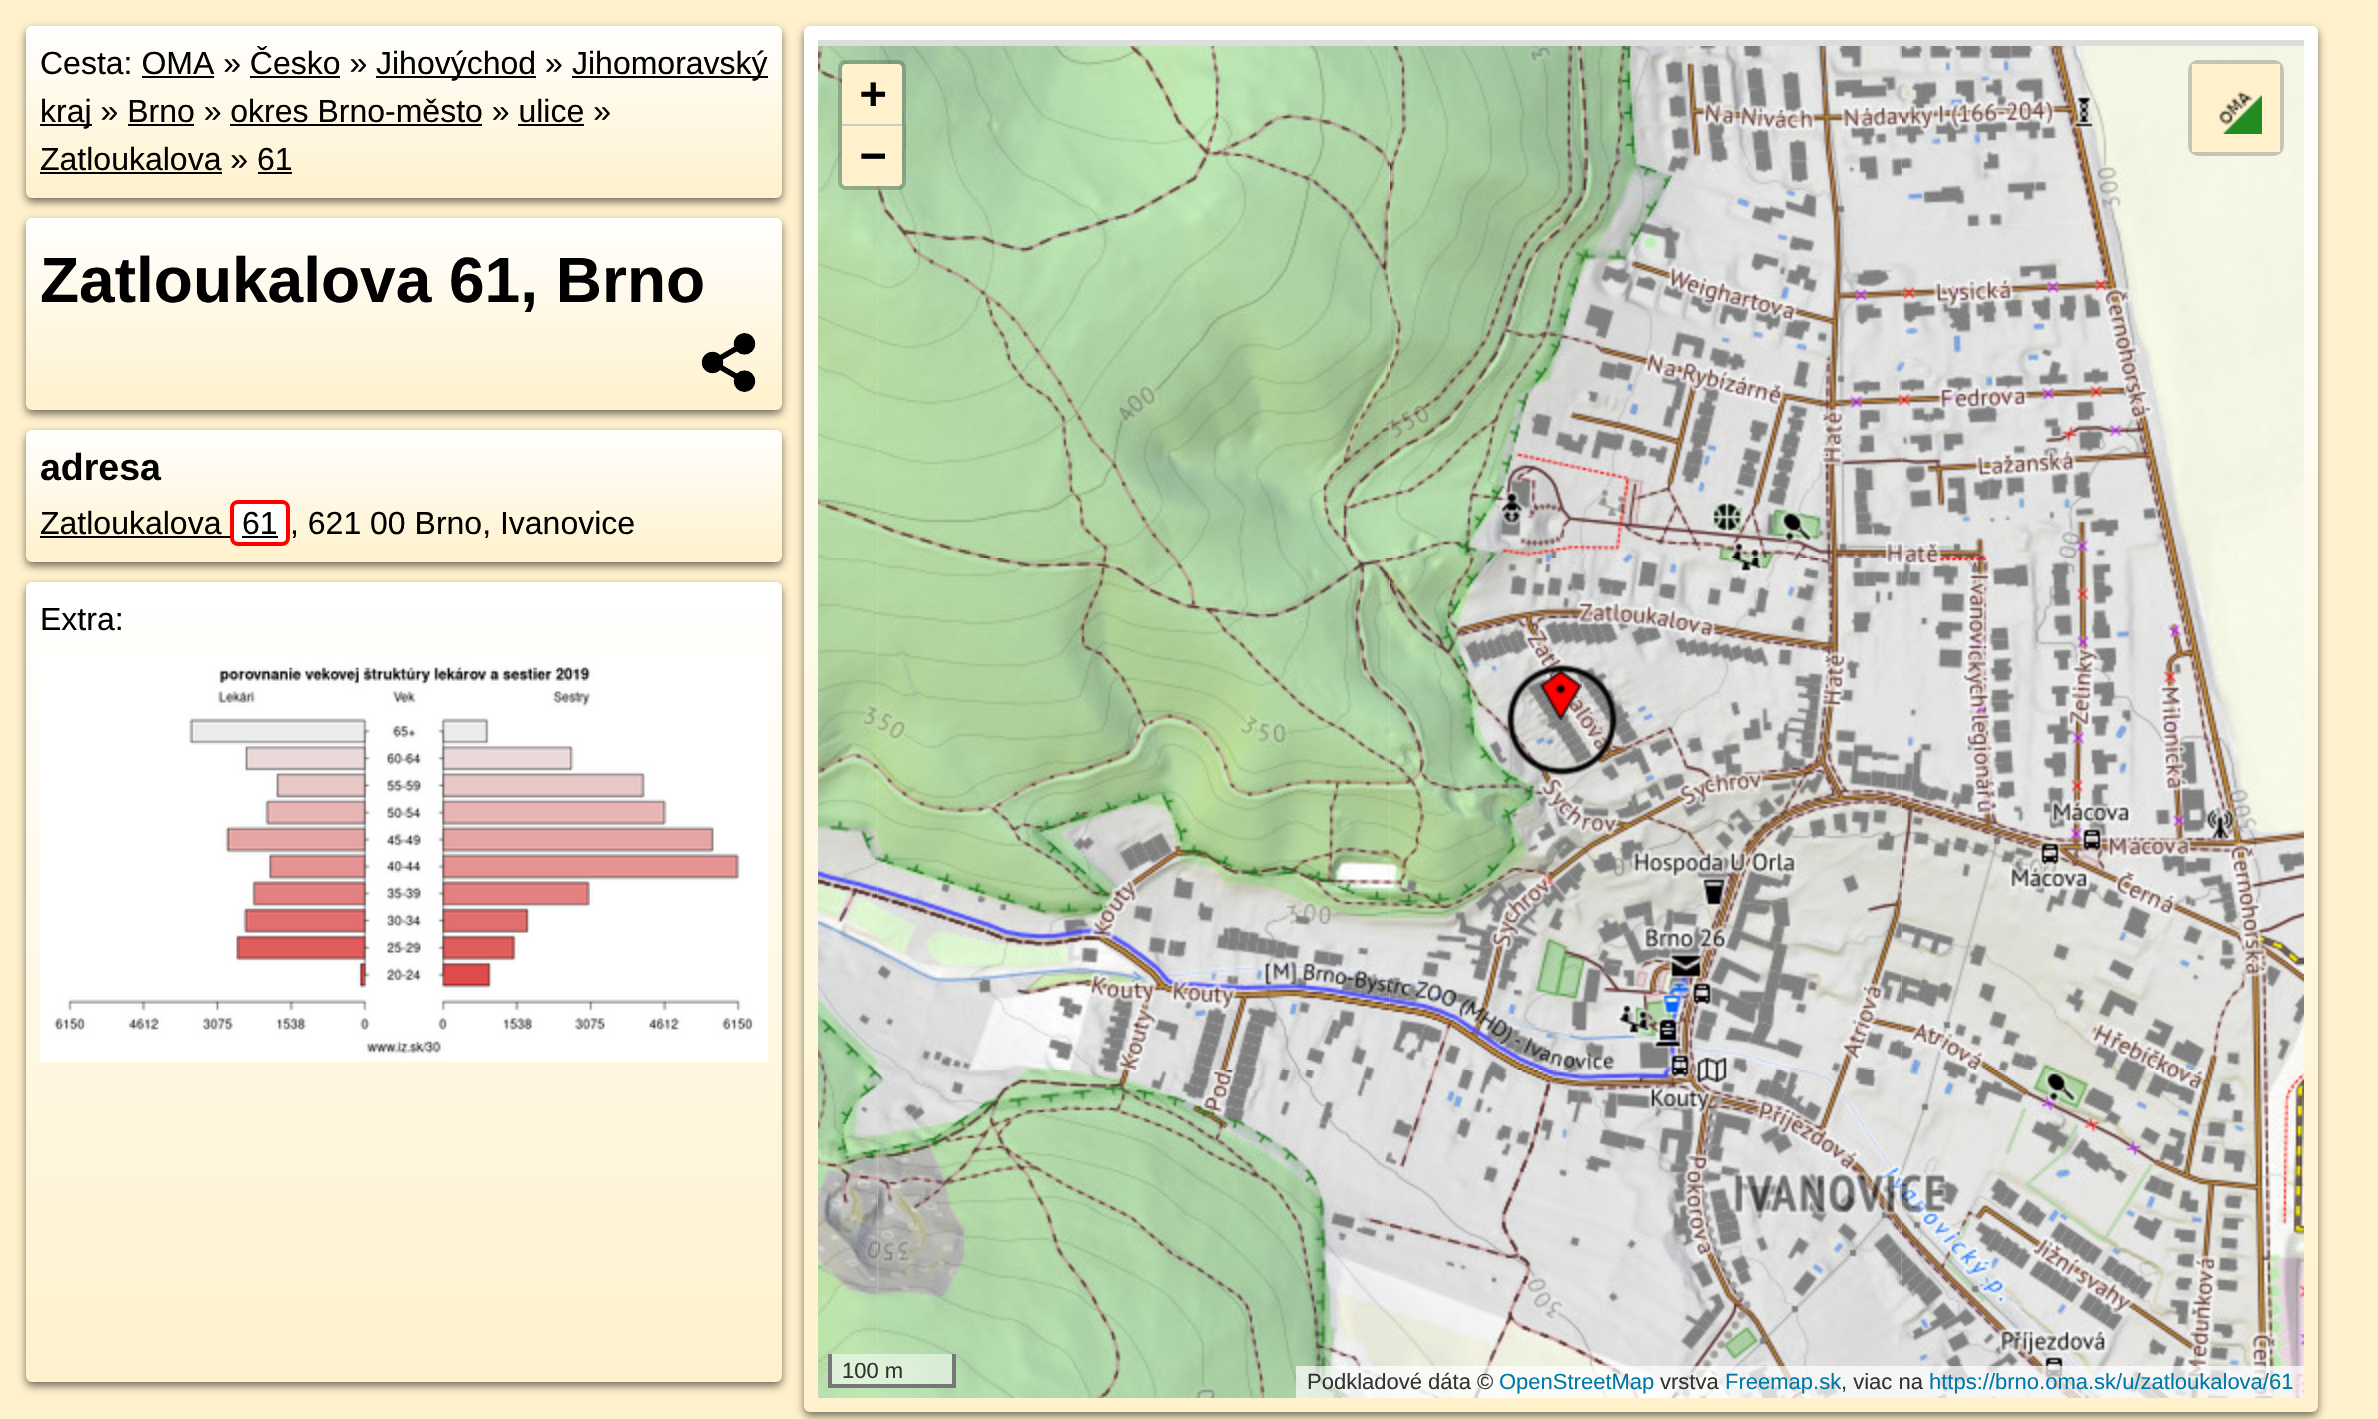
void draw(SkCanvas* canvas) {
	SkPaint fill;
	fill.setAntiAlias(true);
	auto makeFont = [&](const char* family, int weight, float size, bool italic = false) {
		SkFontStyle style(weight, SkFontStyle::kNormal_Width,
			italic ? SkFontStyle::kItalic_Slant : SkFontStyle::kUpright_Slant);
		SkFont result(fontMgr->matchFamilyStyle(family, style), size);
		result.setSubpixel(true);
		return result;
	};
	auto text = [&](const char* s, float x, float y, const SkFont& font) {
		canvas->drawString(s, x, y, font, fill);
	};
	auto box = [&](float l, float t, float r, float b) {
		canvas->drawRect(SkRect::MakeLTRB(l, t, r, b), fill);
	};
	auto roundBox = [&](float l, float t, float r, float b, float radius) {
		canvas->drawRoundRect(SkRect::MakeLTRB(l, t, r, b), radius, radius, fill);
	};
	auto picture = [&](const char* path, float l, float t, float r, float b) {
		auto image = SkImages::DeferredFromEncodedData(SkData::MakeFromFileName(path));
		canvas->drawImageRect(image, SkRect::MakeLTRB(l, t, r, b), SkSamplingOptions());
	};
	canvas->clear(0xFFFFF1CC);
	fill.setColor(0x8C000000);
	fill.setMaskFilter(SkMaskFilter::MakeBlur(kNormal_SkBlurStyle, 4));
	canvas->drawRoundRect(SkRect::MakeLTRB(26, 30, 782, 202), 6, 6, fill);
	fill.setMaskFilter(nullptr);
	{
		const SkColor colors[] = {0xFFFFFFFF, 0xFFFFF1CC};
		const float stops[] = {0, 1};
		const SkPoint ends[] = {{404, 26}, {404, 198}};
		fill.setShader(SkGradientShader::MakeLinear(ends, colors, stops, 2, SkTileMode::kClamp));
		fill.setAlpha(255);
	}
	roundBox(26, 26, 782, 198, 6);
	fill.setShader(nullptr);
	fill.setColor(0xFF000000);
	box(376, 76, 536, 78);
	box(572, 76, 768, 78);
	box(142, 76, 214, 78);
	box(250, 76, 340, 78);
	box(40, 124, 92, 126);
	box(128, 124, 194, 126);
	box(230, 124, 482, 126);
	box(518, 124, 584, 126);
	box(40, 172, 222, 174);
	box(258, 172, 292, 174);
	fill.setColor(0x8C000000);
	fill.setMaskFilter(SkMaskFilter::MakeBlur(kNormal_SkBlurStyle, 4));
	canvas->drawRoundRect(SkRect::MakeLTRB(26, 222, 782, 414), 6, 6, fill);
	fill.setMaskFilter(nullptr);
	{
		const SkColor colors[] = {0xFFFFFFFF, 0xFFFFF1CC};
		const float stops[] = {0, 1};
		const SkPoint ends[] = {{404, 218}, {404, 410}};
		fill.setShader(SkGradientShader::MakeLinear(ends, colors, stops, 2, SkTileMode::kClamp));
		fill.setAlpha(255);
	}
	roundBox(26, 218, 782, 410, 6);
	picture("image0.png", 701, 333, 756, 392);
	fill.setShader(nullptr);
	fill.setColor(0x8C000000);
	fill.setMaskFilter(SkMaskFilter::MakeBlur(kNormal_SkBlurStyle, 4));
	canvas->drawRoundRect(SkRect::MakeLTRB(26, 434, 782, 566), 6, 6, fill);
	fill.setMaskFilter(nullptr);
	{
		const SkColor colors[] = {0xFFFFFFFF, 0xFFFFF1CC};
		const float stops[] = {0, 1};
		const SkPoint ends[] = {{404, 430}, {404, 562}};
		fill.setShader(SkGradientShader::MakeLinear(ends, colors, stops, 2, SkTileMode::kClamp));
		fill.setAlpha(255);
	}
	roundBox(26, 430, 782, 562, 6);
	fill.setShader(nullptr);
	fill.setColor(0xFF000000);
	box(40, 536, 230, 538);
	fill.setColor(0xFFFFFFFF);
	canvas->drawRoundRect(SkRect::MakeLTRB(232, 502, 288, 544), 6, 6, fill);
	fill.setStyle(SkPaint::kStroke_Style);
	fill.setStrokeWidth(4);
	fill.setColor(0xFFFF0000);
	canvas->drawRoundRect(SkRect::MakeLTRB(232, 502, 288, 544), 6, 6, fill);
	fill.setStyle(SkPaint::kFill_Style);
	fill.setColor(0xFF000000);
	box(242, 536, 278, 538);
	fill.setColor(0x8C000000);
	fill.setMaskFilter(SkMaskFilter::MakeBlur(kNormal_SkBlurStyle, 4));
	canvas->drawRoundRect(SkRect::MakeLTRB(26, 586, 782, 1386), 6, 6, fill);
	fill.setMaskFilter(nullptr);
	{
		const SkColor colors[] = {0xFFFFFFFF, 0xFFFFF1CC};
		const float stops[] = {0, 1};
		const SkPoint ends[] = {{404, 582}, {404, 1382}};
		fill.setShader(SkGradientShader::MakeLinear(ends, colors, stops, 2, SkTileMode::kClamp));
		fill.setAlpha(255);
	}
	roundBox(26, 582, 782, 1382, 6);
	picture("image1.png", 40, 653, 768, 1062);
	fill.setShader(nullptr);
	fill.setColor(0x8C000000);
	fill.setMaskFilter(SkMaskFilter::MakeBlur(kNormal_SkBlurStyle, 4));
	canvas->drawRoundRect(SkRect::MakeLTRB(804, 30, 2318, 1416), 6, 6, fill);
	fill.setMaskFilter(nullptr);
	{
		const SkColor colors[] = {0xFFFFFFFF, 0xFFFFF1CC};
		const float stops[] = {0, 1};
		const SkPoint ends[] = {{1561, 26}, {1561, 1412}};
		fill.setShader(SkGradientShader::MakeLinear(ends, colors, stops, 2, SkTileMode::kClamp));
		fill.setAlpha(255);
	}
	roundBox(804, 26, 2318, 1412, 6);
	fill.setShader(nullptr);
	fill.setColor(0xFFDDDDDD);
	box(818, 40, 2304, 1398);
	picture("image3.png", 878, 46, 1390, 558);
	picture("image2.png", 818, 46, 879, 558);
	picture("image4.png", 1390, 46, 1902, 558);
	picture("image5.png", 1902, 46, 2304, 558);
	picture("image7.png", 878, 558, 1390, 1070);
	picture("image6.png", 818, 558, 879, 1070);
	picture("image8.png", 1390, 558, 1902, 1070);
	picture("image9.png", 1902, 558, 2304, 1070);
	picture("image11.png", 878, 1070, 1390, 1398);
	picture("image10.png", 818, 1070, 879, 1398);
	picture("image12.png", 1390, 1070, 1902, 1398);
	picture("image13.png", 1902, 1070, 2304, 1398);
	picture("image14.png", 1505, 663, 1618, 777);
	picture("image15.png", 1540, 670, 1582, 720);
	fill.setStyle(SkPaint::kStroke_Style);
	fill.setColor(0x33000000);
	canvas->drawRoundRect(SkRect::MakeLTRB(840, 62, 904, 188), 6, 6, fill);
	fill.setStyle(SkPaint::kFill_Style);
	fill.setColor(0xFFFFF1CC);
	canvas->drawPath(SkPathBuilder().moveTo(846, 64).lineTo(898, 64).cubicTo(900, 64, 902, 66, 902, 68).lineTo(902, 126).lineTo(842, 126).lineTo(842, 68).cubicTo(842, 66, 844, 64, 846, 64).close().detach(), fill);
	fill.setColor(0xFFCCCCCC);
	box(842, 124, 902, 126);
	fill.setColor(0xFFFFF1CC);
	canvas->drawPath(SkPathBuilder().moveTo(842, 126).lineTo(902, 126).lineTo(902, 182).cubicTo(902, 184, 900, 186, 898, 186).lineTo(846, 186).cubicTo(844, 186, 842, 184, 842, 182).close().detach(), fill);
	fill.setStyle(SkPaint::kStroke_Style);
	fill.setColor(0x33000000);
	canvas->drawRoundRect(SkRect::MakeLTRB(2190, 62, 2282, 154), 8, 8, fill);
	fill.setStyle(SkPaint::kFill_Style);
	fill.setColor(0xFFFFF1CC);
	box(2192, 64, 2280, 152);
	picture("image16.png", 2219, 91, 2262, 134);
	fill.setColor(0x80FFFFFF);
	box(832, 1354, 952, 1384);
	fill.setColor(0xFF777777);
	box(952, 1354, 956, 1388);
	box(828, 1384, 956, 1388);
	box(828, 1354, 832, 1388);
	fill.setColor(0xB3FFFFFF);
	box(1296, 1366, 2304, 1398);
	auto font1 = makeFont("Liberation Sans", 400, 32);
	fill.setColor(0xFF000000);
	text("Cesta: OMA » Česko »", 40, 74, font1);
	text("Jihovýchod »", 376, 74, font1);
	text("Jihomoravský", 572, 74, font1);
	text("kraj » Brno » okres Brno-město » ulice »", 40, 122, font1);
	text("Zatloukalova » 61", 40, 170, font1);
	auto font2 = makeFont("Liberation Sans", 700, 64);
	text("Zatloukalova 61, Brno", 40, 302, font2);
	auto font3 = makeFont("Liberation Sans", 700, 37.5f);
	text("adresa", 40, 480, font3);
	text("Zatloukalova", 40, 534, font1);
	text("61", 242, 534, font1);
	text(", 621 00 Brno, Ivanovice", 290, 534, font1);
	text("Extra:", 40, 630, font1);
	auto font4 = makeFont("DejaVu Sans Mono", 700, 44);
	text("+", 860, 108, font4);
	text("−", 860, 170, font4);
	auto font5 = makeFont("Liberation Sans", 400, 22);
	fill.setColor(0xFF333333);
	text("100 m", 842, 1378, font5);
	text("Podkladové dáta ©", 1307, 1389, font5);
	fill.setColor(0xFF0078A8);
	text("OpenStreetMap", 1499, 1389, font5);
	fill.setColor(0xFF333333);
	text("vrstva", 1660, 1389, font5);
	fill.setColor(0xFF0078A8);
	text("Freemap.sk", 1725, 1389, font5);
	fill.setColor(0xFF333333);
	text(", viac na", 1841, 1389, font5);
	fill.setColor(0xFF0078A8);
	text("https://brno.oma.sk/u/zatloukalova/61", 1929, 1389, font5);
}
